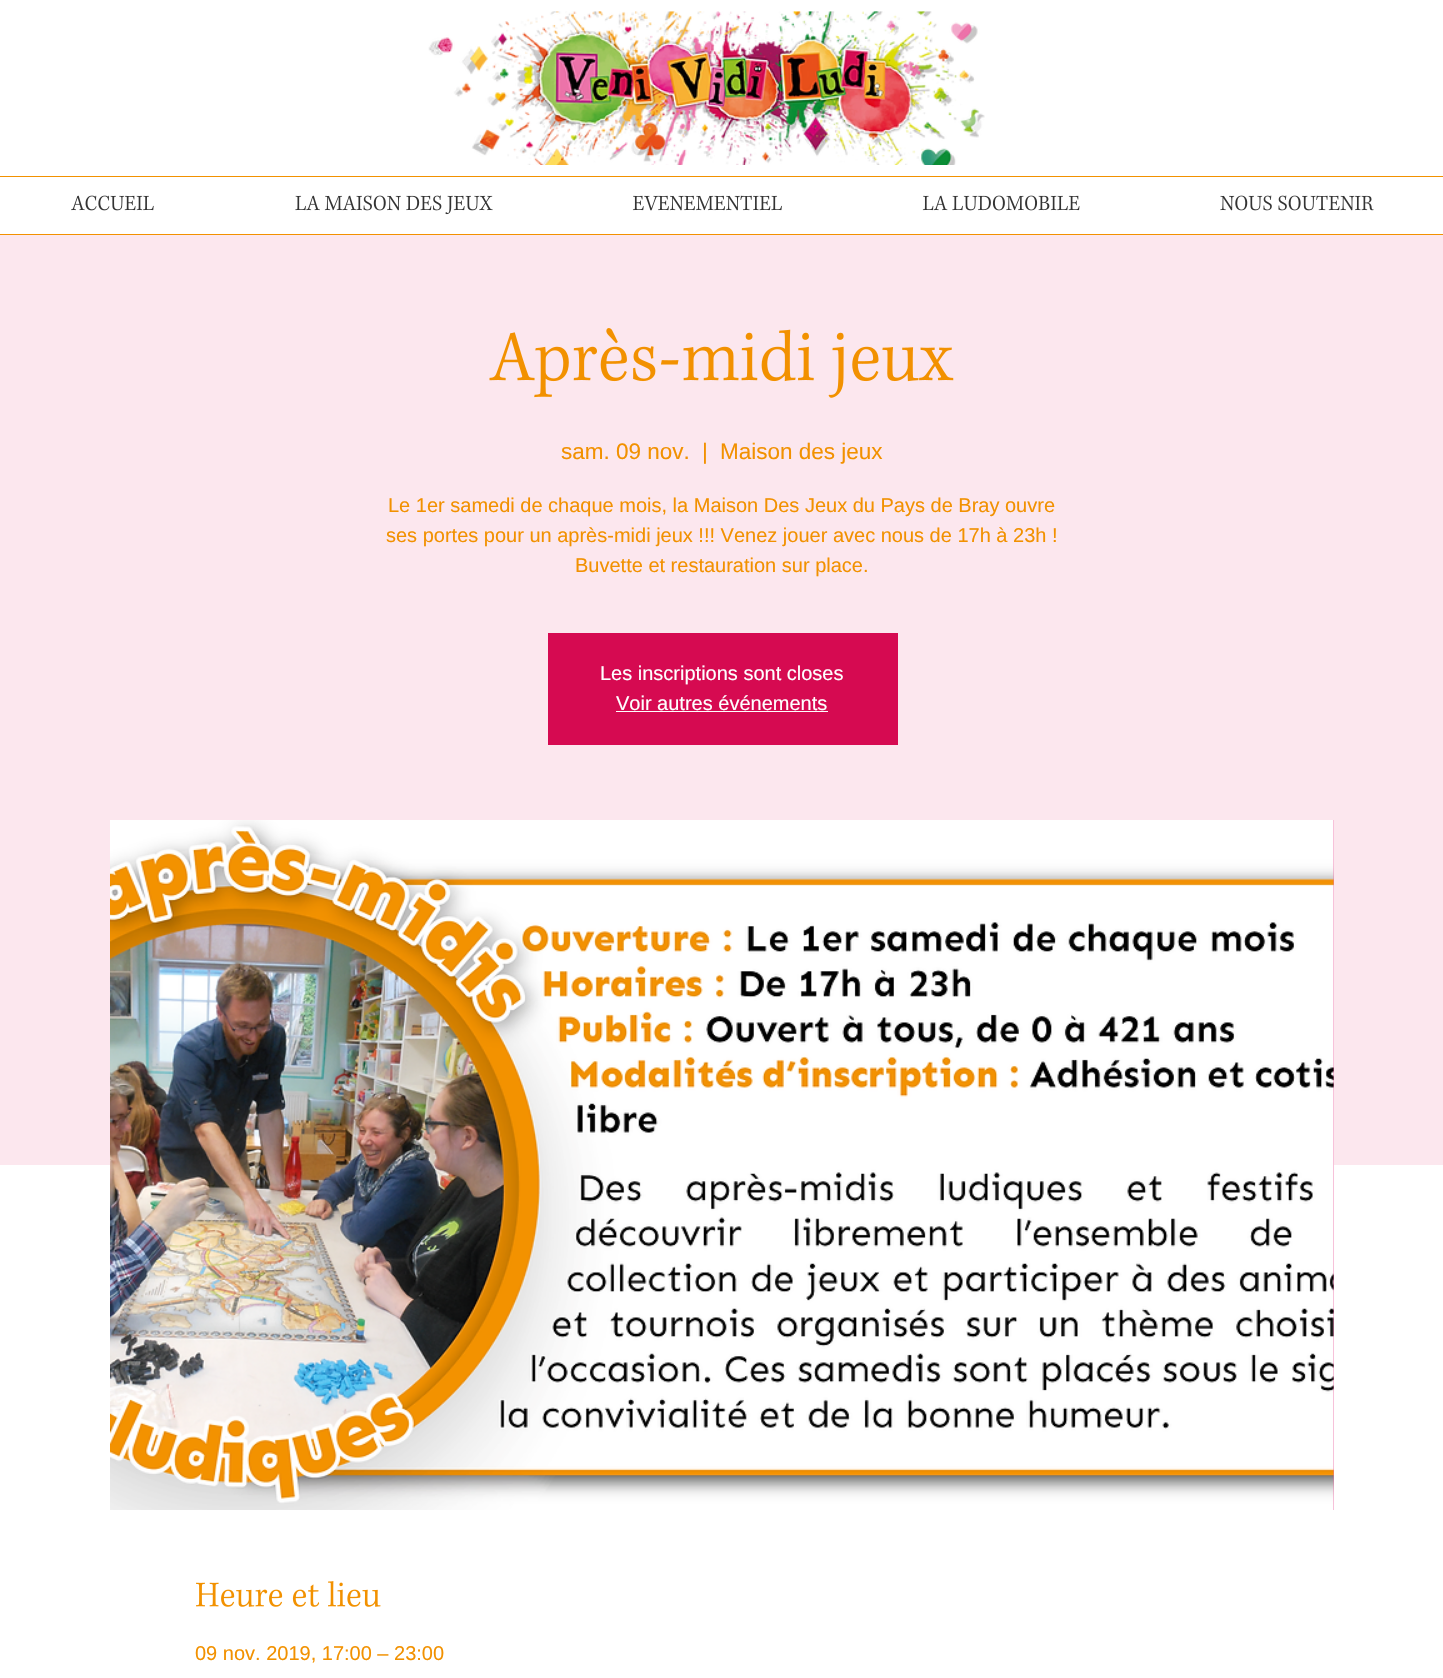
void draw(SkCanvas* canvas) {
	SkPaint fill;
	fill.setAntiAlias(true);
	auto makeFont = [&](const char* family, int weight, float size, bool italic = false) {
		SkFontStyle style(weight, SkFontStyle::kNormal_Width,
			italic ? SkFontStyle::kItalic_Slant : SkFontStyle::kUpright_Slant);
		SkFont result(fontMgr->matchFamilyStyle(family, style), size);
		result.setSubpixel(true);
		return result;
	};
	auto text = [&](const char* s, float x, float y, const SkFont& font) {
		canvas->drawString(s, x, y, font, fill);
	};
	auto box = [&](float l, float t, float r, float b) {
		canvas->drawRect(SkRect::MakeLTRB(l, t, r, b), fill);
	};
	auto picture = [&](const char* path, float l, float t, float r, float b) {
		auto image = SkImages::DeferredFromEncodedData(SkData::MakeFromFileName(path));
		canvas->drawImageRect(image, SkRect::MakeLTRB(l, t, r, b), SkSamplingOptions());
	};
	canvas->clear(0xFFFFFFFF);
	picture("image0.png", 428, 11, 985, 165);
	fill.setColor(0xFFF29100);
	box(0, 176, 1443, 177);
	box(0, 234, 1443, 235);
	picture("image1.png", 71, 195, 154, 211);
	picture("image2.png", 295, 195, 493, 215);
	picture("image3.png", 632, 195, 782, 211);
	picture("image4.png", 922, 195, 1080, 211);
	picture("image5.png", 1220, 195, 1374, 211);
	fill.setColor(0xFFFCE7EE);
	box(0, 235, 1443, 1165);
	picture("image6.png", 489, 328, 954, 398);
	fill.setColor(0xFFD60A51);
	box(548, 633, 898, 745);
	fill.setColor(0xFFFFFFFF);
	box(616, 711, 828, 712);
	fill.setColor(0xFFED73A9);
	box(1333, 820, 1334, 1510);
	picture("image7.png", 110, 820, 1334, 1510);
	picture("image8.png", 196, 1581, 381, 1607);
	auto font1 = makeFont("Liberation Sans", 400, 22.5f);
	fill.setColor(0xFFF29100);
	text("sam. 09 nov.", 561, 459, font1);
	text("|", 702, 459, font1);
	text("Maison des jeux", 720, 459, font1);
	auto font2 = makeFont("Liberation Sans", 400, 20);
	text("Le 1er samedi de chaque mois, la Maison Des Jeux du Pays de Bray ouvre", 388, 512, font2);
	text("ses portes pour un après-midi jeux !!! Venez jouer avec nous de 17h à 23h !", 386, 542, font2);
	text("Buvette et restauration sur place.", 575, 572, font2);
	fill.setColor(0xFFFFFFFF);
	text("Les inscriptions sont closes", 600, 680, font2);
	text("Voir autres événements", 616, 710, font2);
	fill.setColor(0xFFF29100);
	text("09 nov. 2019, 17:00 – 23:00", 195, 1660, font2);
}
